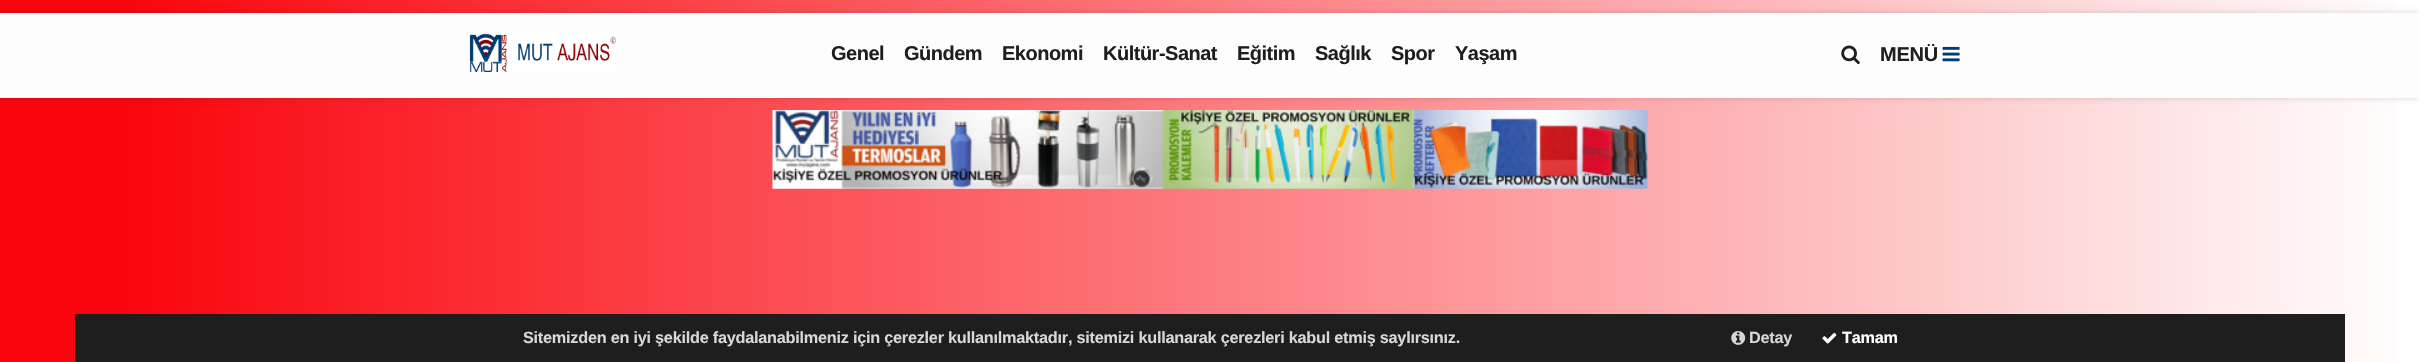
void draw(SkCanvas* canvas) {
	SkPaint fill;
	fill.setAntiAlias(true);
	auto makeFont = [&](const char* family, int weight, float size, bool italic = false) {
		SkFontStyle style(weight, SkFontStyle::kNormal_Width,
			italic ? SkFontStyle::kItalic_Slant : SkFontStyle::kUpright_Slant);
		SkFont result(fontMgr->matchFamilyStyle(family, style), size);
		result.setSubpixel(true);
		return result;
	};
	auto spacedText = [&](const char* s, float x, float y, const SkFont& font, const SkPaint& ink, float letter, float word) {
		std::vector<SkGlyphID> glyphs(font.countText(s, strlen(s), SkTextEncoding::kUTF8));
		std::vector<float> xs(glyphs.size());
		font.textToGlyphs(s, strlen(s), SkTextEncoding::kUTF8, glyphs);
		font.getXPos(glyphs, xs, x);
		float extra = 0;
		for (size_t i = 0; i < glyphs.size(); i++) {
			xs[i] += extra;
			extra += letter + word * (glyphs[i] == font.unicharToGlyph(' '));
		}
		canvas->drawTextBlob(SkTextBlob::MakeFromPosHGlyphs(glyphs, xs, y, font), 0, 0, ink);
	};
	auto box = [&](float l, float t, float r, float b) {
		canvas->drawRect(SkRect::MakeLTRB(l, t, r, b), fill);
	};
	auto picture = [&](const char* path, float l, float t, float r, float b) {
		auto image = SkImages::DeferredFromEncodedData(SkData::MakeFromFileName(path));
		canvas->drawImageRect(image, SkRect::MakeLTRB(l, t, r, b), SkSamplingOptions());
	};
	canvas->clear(0xFFFFFFFF);
	{
		const SkColor colors[] = {0xFFFA050D, 0xFFFFFFFF};
		const float stops[] = {0.05f, 1};
		const SkPoint ends[] = {{0, 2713}, {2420, 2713}};
		fill.setShader(SkGradientShader::MakeLinear(ends, colors, stops, 2, SkTileMode::kClamp));
		fill.setAlpha(255);
	}
	box(0, 0, 2397, 362);
	fill.setShader(nullptr);
	fill.setColor(0x26000000);
	fill.setMaskFilter(SkMaskFilter::MakeBlur(kNormal_SkBlurStyle, 3));
	canvas->drawRect(SkRect::MakeLTRB(0, 13, 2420, 98), fill);
	fill.setMaskFilter(nullptr);
	fill.setColor(0xFFFDFDFD);
	box(0, 13, 2419, 98);
	picture("image0.png", 469, 33, 616, 72);
	picture("image1.png", 1841, 45, 1860, 65);
	picture("image2.png", 1942, 46, 1960, 62);
	picture("image3.png", 772, 110, 1648, 189);
	fill.setColor(0xFF1E1E1E);
	box(75, 314, 2345, 362);
	picture("image4.png", 1731, 331, 1746, 345);
	picture("image5.png", 1822, 332, 1837, 344);
	auto font1 = makeFont("Liberation Sans", 700, 20);
	spacedText("Genel", 831, 60, font1, fill, -0.5f, 0);
	spacedText("Gündem", 904, 60, font1, fill, -0.5f, 0);
	spacedText("Ekonomi", 1002, 60, font1, fill, -0.5f, 0);
	spacedText("Kültür-Sanat", 1103, 60, font1, fill, -0.5f, 0);
	spacedText("Eğitim", 1237, 60, font1, fill, -0.5f, 0);
	spacedText("Sağlık", 1315, 60, font1, fill, -0.5f, 0);
	spacedText("Spor", 1391, 60, font1, fill, -0.5f, 0);
	spacedText("Yaşam", 1455, 60, font1, fill, -0.5f, 0);
	spacedText("MENÜ", 1880, 61, font1, fill, -0.24f, 0);
	auto font2 = makeFont("Liberation Sans", 700, 16.25f);
	fill.setColor(0xFFD7D7D7);
	spacedText("Sitemizden en iyi şekilde faydalanabilmeniz için çerezler kullanılmaktadır, sitemizi kullanarak çerezleri kabul etmiş saylırsınız.", 523, 343, font2, fill, -0.24f, 0);
	spacedText("Detay", 1749, 343, font2, fill, -0.24f, 0);
	fill.setColor(0xFFFFFFFF);
	spacedText("Tamam", 1842, 343, font2, fill, -0.24f, 0);
}
